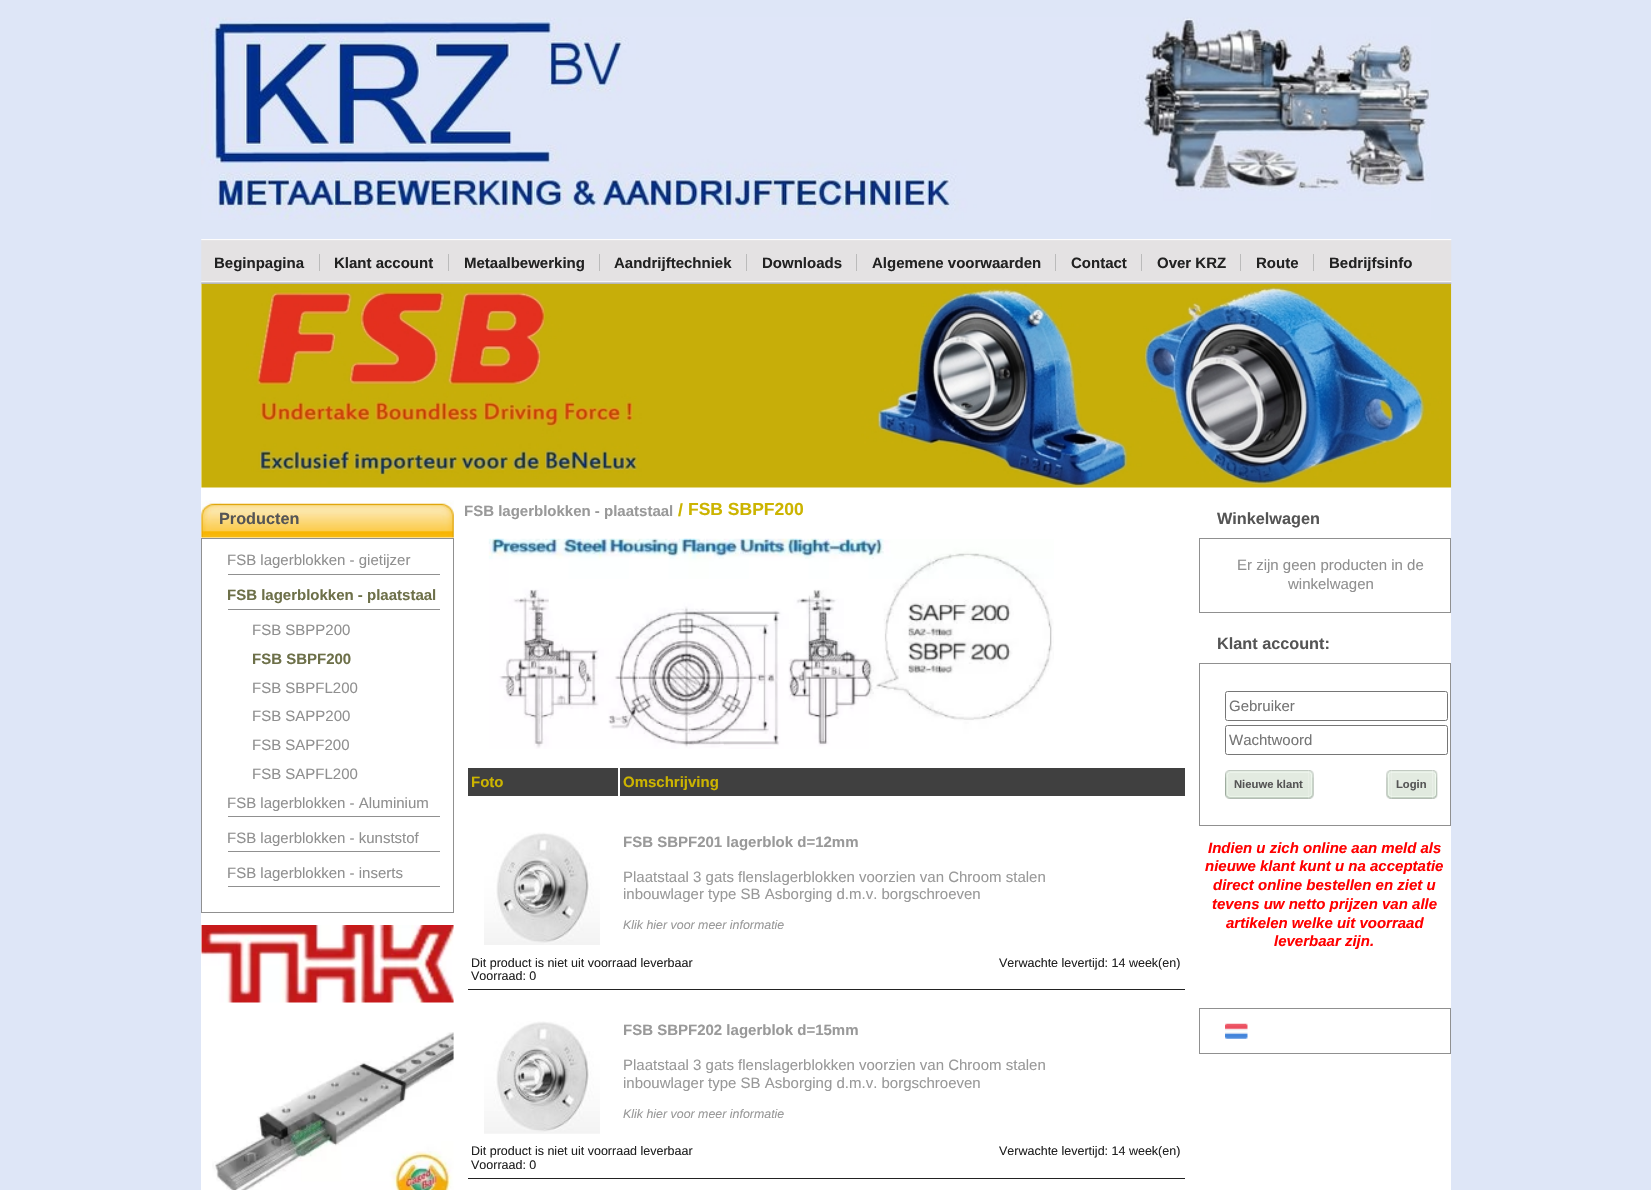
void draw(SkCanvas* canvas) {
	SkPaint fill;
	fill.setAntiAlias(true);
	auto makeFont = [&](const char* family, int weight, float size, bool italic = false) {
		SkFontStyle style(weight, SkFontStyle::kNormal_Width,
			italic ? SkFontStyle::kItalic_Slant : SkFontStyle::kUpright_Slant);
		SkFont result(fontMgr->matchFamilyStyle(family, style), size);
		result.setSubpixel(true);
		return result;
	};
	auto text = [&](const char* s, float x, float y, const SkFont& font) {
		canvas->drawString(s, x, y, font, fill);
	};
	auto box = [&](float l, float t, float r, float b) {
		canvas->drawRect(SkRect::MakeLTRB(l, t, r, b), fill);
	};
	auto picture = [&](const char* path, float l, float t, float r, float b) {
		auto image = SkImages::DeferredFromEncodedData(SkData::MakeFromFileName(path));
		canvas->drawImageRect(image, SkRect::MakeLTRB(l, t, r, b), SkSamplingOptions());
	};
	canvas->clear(0xFFDEE6F7);
	picture("image0.png", 201, 17, 1431, 220);
	picture("image1.png", 201, 239, 1452, 284);
	fill.setColor(0xFFBBBBBB);
	box(319, 254, 320, 271);
	box(448, 254, 449, 271);
	box(599, 254, 600, 271);
	box(746, 254, 747, 271);
	box(856, 254, 857, 271);
	box(1055, 254, 1056, 271);
	box(1141, 254, 1142, 271);
	box(1240, 254, 1241, 271);
	box(1313, 254, 1314, 271);
	fill.setColor(0xFFFFFFFF);
	box(201, 284, 1451, 1190);
	picture("image2.png", 201, 283, 1452, 488);
	picture("image3.png", 201, 500, 454, 538);
	fill.setStyle(SkPaint::kStroke_Style);
	fill.setStrokeWidth(1);
	fill.setColor(0xFF909090);
	canvas->drawRect(SkRect::MakeLTRB(201.5f, 538.5f, 453.5f, 912.5f), fill);
	fill.setStyle(SkPaint::kFill_Style);
	box(228, 574, 440, 575);
	box(228, 609, 440, 610);
	box(228, 816, 440, 817);
	box(228, 851, 440, 852);
	box(228, 886, 440, 887);
	picture("image4.png", 201, 925, 454, 1003);
	picture("image5.png", 212, 1032, 454, 1190);
	picture("image6.png", 488, 538, 1054, 749);
	fill.setColor(0xFF404040);
	box(468, 768, 618, 796);
	box(620, 768, 1185, 796);
	picture("image7.png", 484, 832, 600, 945);
	fill.setColor(0xFF222222);
	box(468, 989, 1185, 990);
	picture("image8.png", 484, 1021, 600, 1134);
	box(468, 1178, 1185, 1179);
	fill.setStyle(SkPaint::kStroke_Style);
	fill.setColor(0xFF909090);
	canvas->drawRect(SkRect::MakeLTRB(1199.5f, 538.5f, 1450.5f, 612.5f), fill);
	canvas->drawRect(SkRect::MakeLTRB(1199.5f, 663.5f, 1450.5f, 825.5f), fill);
	fill.setColor(0xFF767676);
	canvas->drawRoundRect(SkRect::MakeLTRB(1225.5f, 691.5f, 1447.5f, 720.5f), 2, 2, fill);
	canvas->drawRoundRect(SkRect::MakeLTRB(1225.5f, 725.5f, 1447.5f, 754.5f), 2, 2, fill);
	picture("image9.png", 1225, 770, 1230, 799);
	picture("image11.png", 1308, 770, 1314, 799);
	picture("image10.png", 1230, 770, 1309, 799);
	picture("image12.png", 1386, 770, 1392, 799);
	picture("image14.png", 1432, 770, 1438, 799);
	picture("image13.png", 1391, 770, 1433, 799);
	fill.setColor(0xFF909090);
	canvas->drawRect(SkRect::MakeLTRB(1199.5f, 1008.5f, 1450.5f, 1053.5f), fill);
	picture("image15.png", 1225, 1023, 1248, 1039);
	auto font1 = makeFont("Liberation Sans", 700, 15);
	fill.setStyle(SkPaint::kFill_Style);
	fill.setColor(0xFF222222);
	text("Beginpagina", 214, 268, font1);
	text("Klant account", 334, 268, font1);
	text("Metaalbewerking", 464, 268, font1);
	text("Aandrijftechniek", 614, 268, font1);
	text("Downloads", 762, 268, font1);
	text("Algemene voorwaarden", 872, 268, font1);
	text("Contact", 1071, 268, font1);
	text("Over KRZ", 1157, 268, font1);
	text("Route", 1256, 268, font1);
	text("Bedrijfsinfo", 1329, 268, font1);
	auto font2 = makeFont("Liberation Sans", 700, 16.25f);
	fill.setColor(0xFF555555);
	text("Producten", 219, 524, font2);
	auto font3 = makeFont("Liberation Sans", 400, 15);
	fill.setColor(0xFF909090);
	text("FSB lagerblokken - gietijzer", 227, 565, font3);
	canvas->save();
	canvas->clipRect(SkRect::MakeLTRB(228, 586, 440, 609));
	fill.setColor(0xFF6D7049);
	text("FSB lagerblokken - plaatstaal", 227, 600, font1);
	canvas->restore();
	fill.setColor(0xFF909090);
	text("FSB SBPP200", 252, 635, font3);
	canvas->save();
	canvas->clipRect(SkRect::MakeLTRB(253, 650, 440, 669));
	fill.setColor(0xFF6D7049);
	text("FSB SBPF200", 252, 664, font1);
	canvas->restore();
	fill.setColor(0xFF909090);
	text("FSB SBPFL200", 252, 693, font3);
	text("FSB SAPP200", 252, 721, font3);
	text("FSB SAPF200", 252, 750, font3);
	text("FSB SAPFL200", 252, 779, font3);
	text("FSB lagerblokken - Aluminium", 227, 808, font3);
	text("FSB lagerblokken - kunststof", 227, 843, font3);
	text("FSB lagerblokken - inserts", 227, 878, font3);
	fill.setColor(0xFF999999);
	text("FSB lagerblokken - plaatstaal", 464, 516, font1);
	auto font4 = makeFont("Liberation Sans", 700, 17.5f);
	fill.setColor(0xFFCCB400);
	text("/", 678, 516, font4);
	text("FSB SBPF200", 688, 515, font4);
	text("Foto", 471, 787, font1);
	text("Omschrijving", 623, 787, font1);
	fill.setColor(0xFF999999);
	text("FSB SBPF201 lagerblok d=12mm", 623, 847, font1);
	text("Plaatstaal 3 gats flenslagerblokken voorzien van Chroom stalen", 623, 882, font3);
	text("inbouwlager type SB Asborging d.m.v. borgschroeven", 623, 899, font3);
	auto font5 = makeFont("Liberation Sans", 400, 12.4f, true);
	text("Klik hier voor meer informatie", 623, 929, font5);
	auto font6 = makeFont("Liberation Sans", 400, 12.5f);
	fill.setColor(0xFF222222);
	text("Dit product is niet uit voorraad leverbaar", 471, 967, font6);
	text("Verwachte levertijd: 14 week(en)", 999, 967, font6);
	text("Voorraad: 0", 471, 980, font6);
	fill.setColor(0xFF999999);
	text("FSB SBPF202 lagerblok d=15mm", 623, 1035, font1);
	text("Plaatstaal 3 gats flenslagerblokken voorzien van Chroom stalen", 623, 1070, font3);
	text("inbouwlager type SB Asborging d.m.v. borgschroeven", 623, 1088, font3);
	text("Klik hier voor meer informatie", 623, 1118, font5);
	fill.setColor(0xFF222222);
	text("Dit product is niet uit voorraad leverbaar", 471, 1155, font6);
	text("Verwachte levertijd: 14 week(en)", 999, 1155, font6);
	text("Voorraad: 0", 471, 1169, font6);
	fill.setColor(0xFF555555);
	text("Winkelwagen", 1217, 524, font2);
	fill.setColor(0xFF909090);
	text("Er zijn geen producten in de", 1237, 570, font3);
	text("winkelwagen", 1288, 589, font3);
	fill.setColor(0xFF555555);
	text("Klant account:", 1217, 649, font2);
	fill.setColor(0xFF757575);
	text("Gebruiker", 1229, 711, font3);
	text("Wachtwoord", 1229, 745, font3);
	auto font7 = makeFont("Liberation Sans", 700, 11.25f);
	fill.setColor(0xFF555555);
	text("Nieuwe klant", 1234, 788, font7);
	text("Login", 1396, 788, font7);
	auto font8 = makeFont("Liberation Sans", 700, 15, true);
	fill.setColor(0xFFFF0000);
	text("Indien u zich online aan meld als", 1208, 853, font8);
	text("nieuwe klant kunt u na acceptatie", 1205, 871, font8);
	text("direct online bestellen en ziet u", 1213, 890, font8);
	text("tevens uw netto prijzen van alle", 1212, 909, font8);
	text("artikelen welke uit voorraad", 1226, 928, font8);
	text("leverbaar zijn.", 1274, 946, font8);
}
